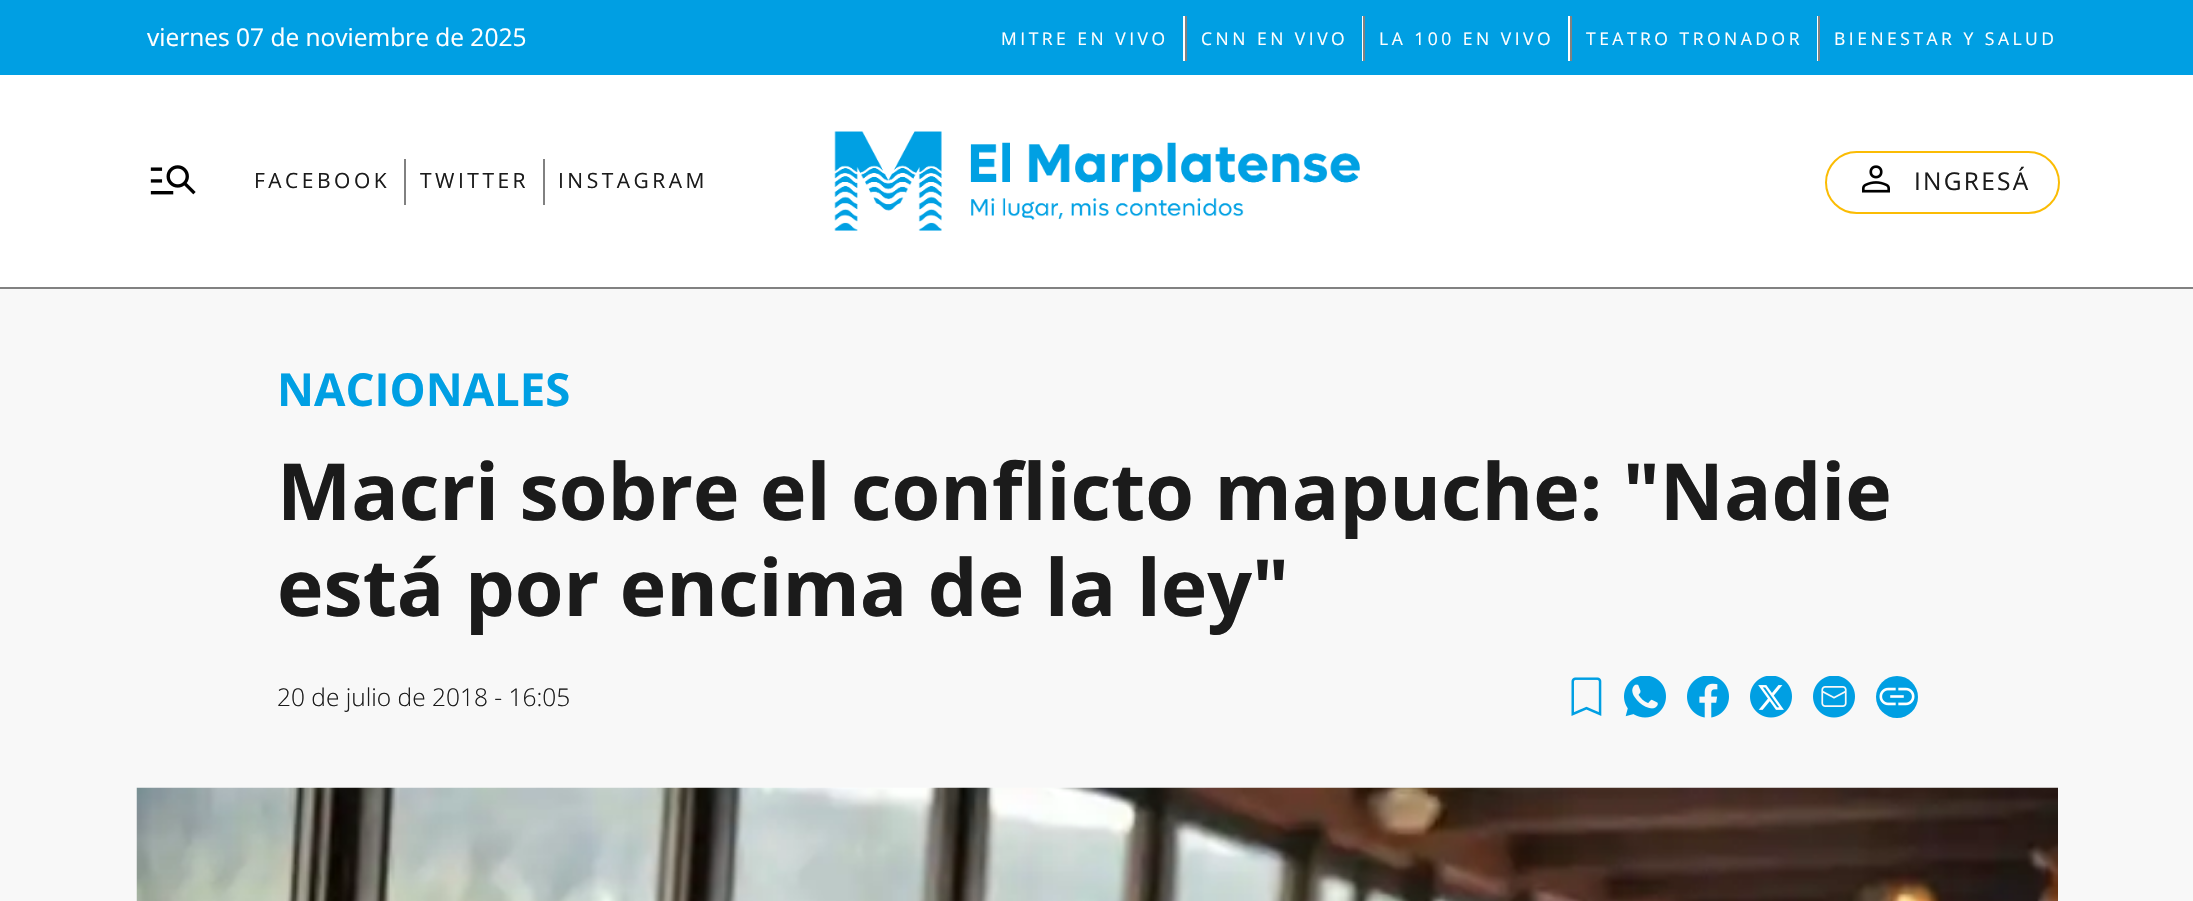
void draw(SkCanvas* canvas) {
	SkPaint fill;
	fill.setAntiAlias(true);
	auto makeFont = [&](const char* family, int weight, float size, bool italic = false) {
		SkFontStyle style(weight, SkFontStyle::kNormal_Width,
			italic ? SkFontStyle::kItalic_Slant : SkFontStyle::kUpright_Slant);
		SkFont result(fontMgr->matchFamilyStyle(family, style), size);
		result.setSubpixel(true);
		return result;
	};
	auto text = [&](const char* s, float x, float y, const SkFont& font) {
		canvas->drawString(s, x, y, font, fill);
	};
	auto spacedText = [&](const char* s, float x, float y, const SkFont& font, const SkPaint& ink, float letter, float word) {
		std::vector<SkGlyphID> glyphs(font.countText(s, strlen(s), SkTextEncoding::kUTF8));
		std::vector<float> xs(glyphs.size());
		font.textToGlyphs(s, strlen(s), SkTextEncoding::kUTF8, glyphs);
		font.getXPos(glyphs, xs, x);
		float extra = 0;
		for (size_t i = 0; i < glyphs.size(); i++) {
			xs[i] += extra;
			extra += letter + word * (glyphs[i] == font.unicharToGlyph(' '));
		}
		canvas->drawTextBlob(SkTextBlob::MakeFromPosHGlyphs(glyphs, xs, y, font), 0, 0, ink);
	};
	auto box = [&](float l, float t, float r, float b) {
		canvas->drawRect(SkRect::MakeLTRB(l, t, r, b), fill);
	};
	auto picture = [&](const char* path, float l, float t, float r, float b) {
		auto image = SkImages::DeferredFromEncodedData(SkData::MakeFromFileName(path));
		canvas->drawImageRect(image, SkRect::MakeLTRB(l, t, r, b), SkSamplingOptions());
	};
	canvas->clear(0xFFFFFFFF);
	fill.setColor(0xFF009FE3);
	box(0, 0, 2193, 75);
	fill.setColor(0xFFFFFFFF);
	box(1183, 16, 1185, 61);
	box(1362, 16, 1363, 61);
	fill.setColor(0xFF818181);
	box(1185, 16, 1187, 61);
	fill.setColor(0xFFFFFFFF);
	box(1568, 16, 1570, 61);
	fill.setColor(0xFF818181);
	box(1363, 16, 1365, 61);
	fill.setColor(0xFFFFFFFF);
	box(1817, 16, 1818, 61);
	fill.setColor(0xFF818181);
	box(1570, 16, 1572, 61);
	box(1818, 16, 1820, 61);
	box(0, 287, 2193, 289);
	picture("image0.png", 150, 165, 196, 195);
	box(404, 159, 406, 205);
	box(543, 159, 545, 205);
	picture("image1.png", 834, 131, 1360, 231);
	fill.setStyle(SkPaint::kStroke_Style);
	fill.setStrokeWidth(2);
	fill.setColor(0xFFFBBC04);
	canvas->drawRoundRect(SkRect::MakeLTRB(1826, 152, 2059, 213), 30.5f, 30.5f, fill);
	picture("image2.png", 1862, 165, 1890, 193);
	fill.setStyle(SkPaint::kFill_Style);
	fill.setColor(0xFFF8F8F8);
	box(0, 289, 2193, 901);
	picture("image3.png", 1571, 677, 1602, 716);
	picture("image4.png", 1624, 676, 1666, 718);
	picture("image5.png", 1687, 676, 1729, 718);
	picture("image6.png", 1750, 676, 1792, 718);
	picture("image7.png", 1813, 676, 1855, 718);
	fill.setColor(0xFF009FE3);
	canvas->drawCircle(1897, 697, 21, fill);
	picture("image8.png", 1879, 687, 1915, 706);
	picture("image9.png", 136, 787, 2058, 901);
	auto font1 = makeFont("Open Sans", 400, 24.5f);
	fill.setColor(0xFFFFFFFF);
	text("viernes 07 de noviembre de 2025", 147, 46, font1);
	auto font2 = makeFont("Open Sans", 400, 17.5f);
	spacedText("MITRE EN VIVO", 1001, 45, font2, fill, 3.5f, 0);
	spacedText("CNN EN VIVO", 1201, 45, font2, fill, 3.5f, 0);
	spacedText("LA 100 EN VIVO", 1379, 45, font2, fill, 3.5f, 0);
	spacedText("TEATRO TRONADOR", 1586, 45, font2, fill, 3.5f, 0);
	spacedText("BIENESTAR Y SALUD", 1834, 45, font2, fill, 3.5f, 0);
	auto font3 = makeFont("Open Sans", 400, 21);
	fill.setColor(0xFF1B1B1B);
	spacedText("FACEBOOK", 254, 188, font3, fill, 3.5f, 0);
	spacedText("TWITTER", 420, 188, font3, fill, 3.5f, 0);
	spacedText("INSTAGRAM", 558, 188, font3, fill, 3.5f, 0);
	spacedText("INGRESÁ", 1914, 190, font1, fill, 2.25f, 0);
	auto font4 = makeFont("Open Sans", 700, 45.5f);
	fill.setColor(0xFF009FE3);
	text("NACIONALES", 277, 406, font4);
	auto font5 = makeFont("Open Sans", 700, 78.75f);
	fill.setColor(0xFF1B1B1B);
	text("Macri sobre el conflicto mapuche: \"Nadie", 277, 520, font5);
	text("está por encima de la ley\"", 277, 616, font5);
	auto font6 = makeFont("Open Sans", 300, 24.5f);
	text("20 de julio de 2018 - 16:05", 277, 706, font6);
}
